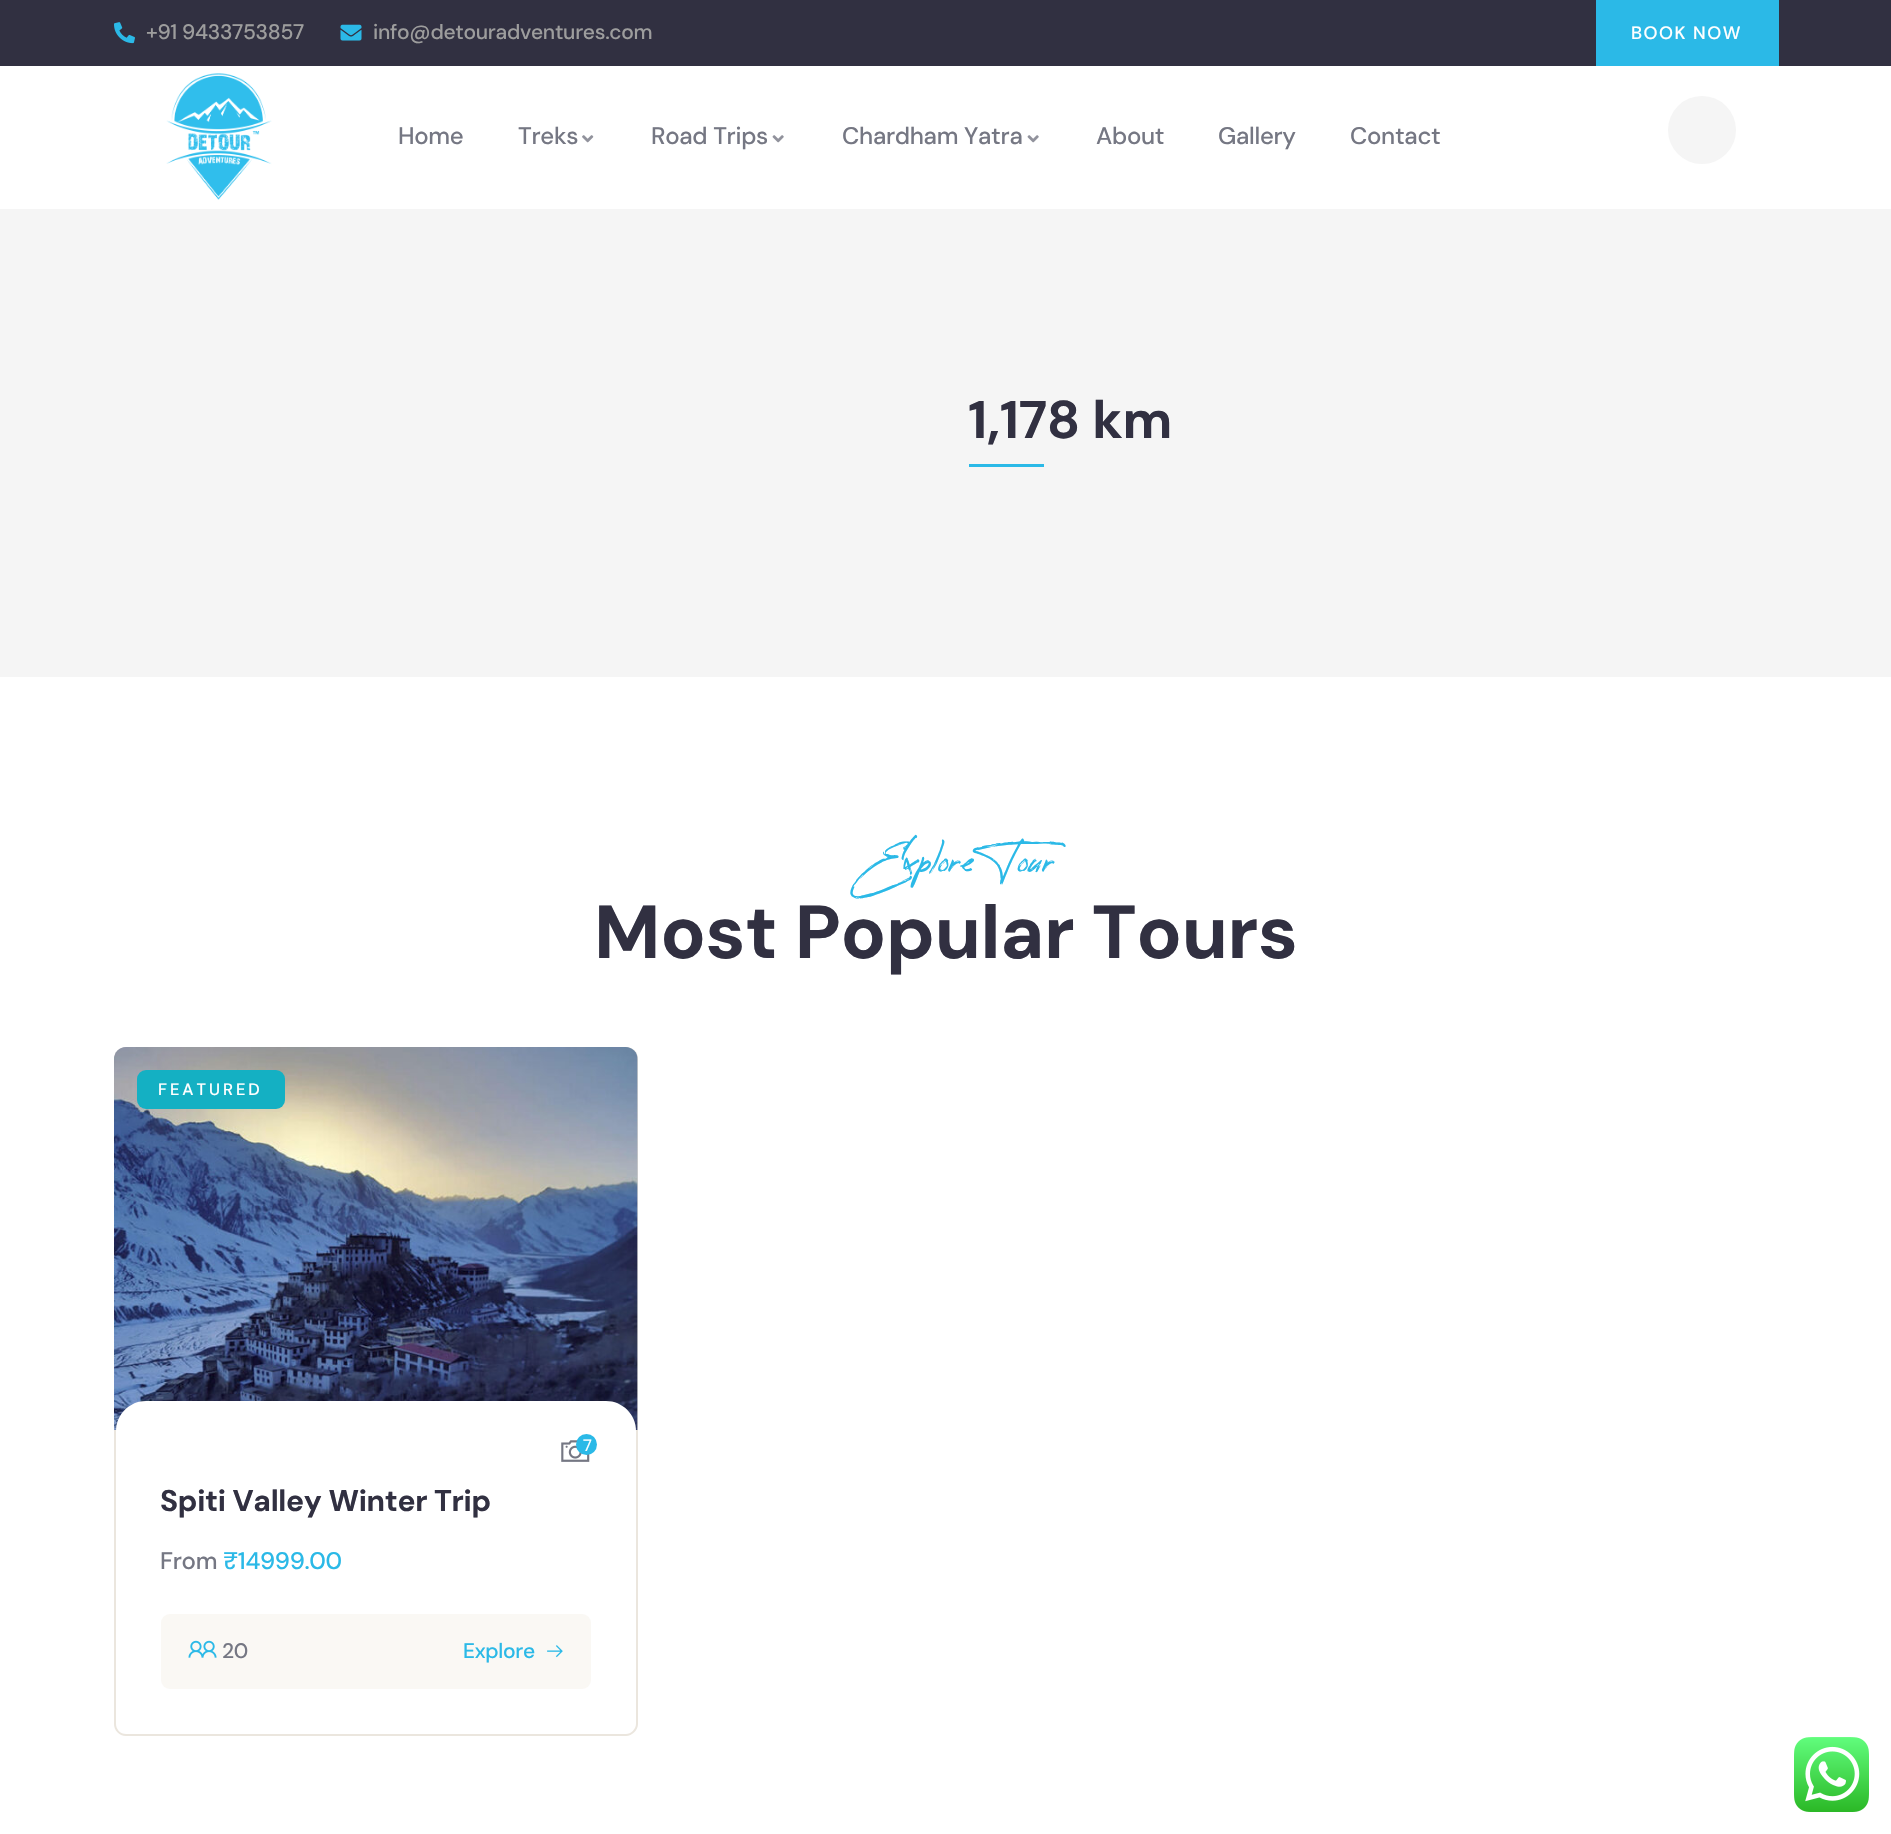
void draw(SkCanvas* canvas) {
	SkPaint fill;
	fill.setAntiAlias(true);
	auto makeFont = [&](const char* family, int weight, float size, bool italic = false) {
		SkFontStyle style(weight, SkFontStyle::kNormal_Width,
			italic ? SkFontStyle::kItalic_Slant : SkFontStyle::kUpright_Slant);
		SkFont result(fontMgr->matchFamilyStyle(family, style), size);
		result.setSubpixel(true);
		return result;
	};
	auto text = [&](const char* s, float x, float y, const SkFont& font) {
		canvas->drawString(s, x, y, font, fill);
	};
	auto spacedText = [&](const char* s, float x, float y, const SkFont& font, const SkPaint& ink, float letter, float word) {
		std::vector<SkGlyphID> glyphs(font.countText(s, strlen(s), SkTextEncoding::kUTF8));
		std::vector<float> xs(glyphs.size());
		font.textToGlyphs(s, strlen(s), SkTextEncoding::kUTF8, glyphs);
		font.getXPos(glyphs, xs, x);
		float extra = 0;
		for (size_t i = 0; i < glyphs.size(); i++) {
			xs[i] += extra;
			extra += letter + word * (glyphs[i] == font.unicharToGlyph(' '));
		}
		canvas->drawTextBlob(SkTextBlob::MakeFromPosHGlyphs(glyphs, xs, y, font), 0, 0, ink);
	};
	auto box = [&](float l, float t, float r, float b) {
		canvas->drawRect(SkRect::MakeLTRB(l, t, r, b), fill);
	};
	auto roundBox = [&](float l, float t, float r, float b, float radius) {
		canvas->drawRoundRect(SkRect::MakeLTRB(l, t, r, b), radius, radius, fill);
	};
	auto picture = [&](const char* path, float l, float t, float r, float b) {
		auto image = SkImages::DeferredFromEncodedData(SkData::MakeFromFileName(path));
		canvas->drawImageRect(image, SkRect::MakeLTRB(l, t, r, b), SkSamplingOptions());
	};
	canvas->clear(0xFFFFFFFF);
	fill.setColor(0xFF313041);
	box(0, 0, 1891, 66);
	picture("image0.png", 114, 22, 135, 44);
	picture("image1.png", 340, 24, 362, 41);
	fill.setColor(0xFF2BB9E7);
	box(1596, 0, 1779, 66);
	picture("image2.png", 166, 73, 272, 200);
	picture("image3.png", 582, 135, 594, 143);
	picture("image4.png", 772, 135, 784, 143);
	picture("image4.png", 1027, 135, 1039, 143);
	fill.setColor(0xFFF5F5F5);
	canvas->drawCircle(1702, 130, 34, fill);
	box(0, 209, 1891, 677);
	fill.setColor(0xFF2BB9E7);
	box(969, 464, 1044, 467);
	fill.setColor(0xFFCCCCCC);
	canvas->drawPath(SkPathBuilder().moveTo(126, 1047).lineTo(626, 1047).cubicTo(632.5f, 1047, 638, 1052.5f, 638, 1059).lineTo(638, 1454).lineTo(114, 1454).lineTo(114, 1059).cubicTo(114, 1052.5f, 119.5f, 1047, 126, 1047).close().detach(), fill);
	picture("image5.png", 114, 1047, 638, 1430);
	fill.setColor(0xFF14B0C3);
	roundBox(137, 1070, 285, 1109, 9);
	fill.setColor(0xFFFFFFFF);
	canvas->drawPath(SkPathBuilder().moveTo(114, 1430).lineTo(638, 1430).lineTo(638, 1724).cubicTo(638, 1730.5f, 632.5f, 1736, 626, 1736).lineTo(126, 1736).cubicTo(119.5f, 1736, 114, 1730.5f, 114, 1724).close().detach(), fill);
	fill.setColor(0xFFEBE6DE);
	canvas->drawPath(SkPathBuilder(SkPathFillType::kEvenOdd).moveTo(114, 1430).lineTo(638, 1430).lineTo(638, 1724).cubicTo(638, 1730, 632, 1736, 626, 1736).lineTo(126, 1736).cubicTo(119, 1736, 114, 1730, 114, 1724).close().moveTo(116, 1430).lineTo(636, 1430).lineTo(636, 1724).cubicTo(636, 1729, 631, 1734, 626, 1734).lineTo(126, 1734).cubicTo(120, 1734, 116, 1729, 116, 1724).close().detach(), fill);
	fill.setColor(0xFFFFFFFF);
	canvas->drawPath(SkPathBuilder().moveTo(146, 1401).lineTo(606, 1401).cubicTo(622.5f, 1401, 636, 1414.5f, 636, 1431).lineTo(116, 1431).cubicTo(116, 1414.5f, 129.5f, 1401, 146, 1401).close().detach(), fill);
	picture("image6.png", 561, 1440, 590, 1462);
	fill.setColor(0xFF2BB9E7);
	canvas->drawCircle(586.5f, 1444.5f, 10.5f, fill);
	fill.setColor(0xFFFAF8F4);
	roundBox(161, 1614, 591, 1689, 9);
	picture("image7.png", 188, 1640, 217, 1658);
	picture("image8.png", 547, 1645, 563, 1658);
	picture("image9.png", 1794, 1737, 1869, 1812);
	auto font1 = makeFont("DM Sans", 500, 21);
	fill.setColor(0xFF9D9D9D);
	spacedText("+91 9433753857", 146, 39, font1, fill, -0.3f, 0);
	spacedText("info@detouradventures.com", 373, 39, font1, fill, -0.3f, 0);
	auto font2 = makeFont("DM Sans", 500, 18);
	fill.setColor(0xFFFFFFFF);
	spacedText("BOOK NOW", 1631, 39, font2, fill, 1.5f, 0);
	auto font3 = makeFont("DM Sans", 500, 24);
	fill.setColor(0xFF757783);
	spacedText("Home", 398, 144, font3, fill, -0.3f, 0);
	spacedText("Treks", 518, 144, font3, fill, -0.3f, 0);
	spacedText("Road Trips", 651, 144, font3, fill, -0.3f, 0);
	spacedText("Chardham Yatra", 842, 144, font3, fill, -0.3f, 0);
	spacedText("About", 1096, 144, font3, fill, -0.3f, 0);
	spacedText("Gallery", 1218, 144, font3, fill, -0.3f, 0);
	spacedText("Contact", 1350, 144, font3, fill, -0.3f, 0);
	auto font4 = makeFont("DM Sans", 700, 53);
	fill.setColor(0xFF313041);
	spacedText("1,178 km", 968, 438, font4, fill, -0.3f, 0);
	auto font5 = makeFont("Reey", 400, 30);
	fill.setColor(0xFF2BB9E7);
	text("Explore Tour", 860, 873, font5);
	auto font6 = makeFont("DM Sans", 700, 75);
	fill.setColor(0xFF313041);
	spacedText("Most Popular Tours", 594, 958, font6, fill, -0.3f, 0);
	auto font7 = makeFont("DM Sans", 500, 16.5f);
	fill.setColor(0xFFFFFFFF);
	spacedText("FEATURED", 158, 1095, font7, fill, 3, 0);
	auto font8 = makeFont("DM Sans", 400, 16.5f);
	spacedText("7", 583, 1451, font8, fill, -0.3f, 0);
	auto font9 = makeFont("DM Sans", 700, 30);
	fill.setColor(0xFF313041);
	spacedText("Spiti Valley Winter Trip", 160, 1511, font9, fill, -0.3f, 0);
	fill.setColor(0xFF757783);
	spacedText("From", 160, 1569, font3, fill, -0.3f, 0);
	fill.setColor(0xFF2BB9E7);
	spacedText("₹14999.00", 223, 1569, font3, fill, -0.3f, 0);
	fill.setColor(0xFF757783);
	spacedText("20", 222, 1658, font1, fill, -0.3f, 0);
	fill.setColor(0xFF2BB9E7);
	spacedText("Explore", 463, 1658, font1, fill, -0.3f, 0);
}
